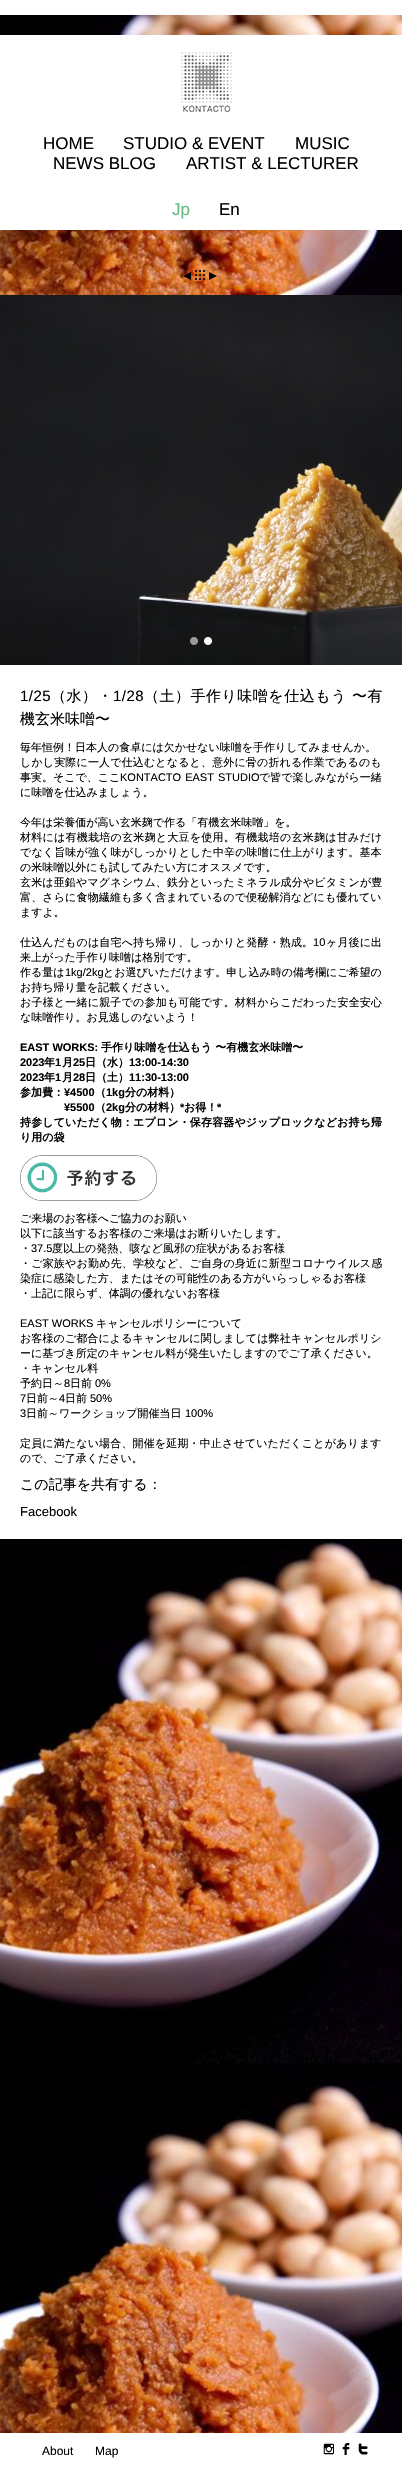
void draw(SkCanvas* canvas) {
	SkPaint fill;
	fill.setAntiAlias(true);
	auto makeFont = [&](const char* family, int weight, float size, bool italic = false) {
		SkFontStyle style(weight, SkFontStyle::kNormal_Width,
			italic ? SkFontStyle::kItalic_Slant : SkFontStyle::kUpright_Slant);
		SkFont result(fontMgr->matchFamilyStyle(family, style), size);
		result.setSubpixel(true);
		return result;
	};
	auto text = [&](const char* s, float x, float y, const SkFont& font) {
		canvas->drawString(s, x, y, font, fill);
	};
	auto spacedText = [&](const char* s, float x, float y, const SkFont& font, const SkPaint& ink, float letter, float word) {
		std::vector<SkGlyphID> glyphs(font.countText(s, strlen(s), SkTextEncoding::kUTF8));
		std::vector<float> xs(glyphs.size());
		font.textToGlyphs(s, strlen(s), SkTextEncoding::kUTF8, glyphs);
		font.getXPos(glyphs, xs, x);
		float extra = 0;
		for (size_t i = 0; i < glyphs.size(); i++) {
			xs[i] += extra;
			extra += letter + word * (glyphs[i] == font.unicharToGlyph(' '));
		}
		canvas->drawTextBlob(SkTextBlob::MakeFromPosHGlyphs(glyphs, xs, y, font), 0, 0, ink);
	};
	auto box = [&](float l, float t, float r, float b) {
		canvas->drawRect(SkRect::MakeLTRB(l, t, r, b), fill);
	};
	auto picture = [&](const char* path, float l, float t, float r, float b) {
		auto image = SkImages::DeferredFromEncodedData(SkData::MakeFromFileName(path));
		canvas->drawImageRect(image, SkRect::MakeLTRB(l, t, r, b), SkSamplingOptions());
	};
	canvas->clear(0xFFFFFFFF);
	picture("image0.png", 0, 15, 402, 2433);
	fill.setColor(0xFFFFFFFF);
	box(0, 35, 402, 230);
	picture("image1.png", 181, 52, 232, 113);
	picture("image2.png", 183, 272, 191, 280);
	picture("image3.png", 195, 270, 205, 280);
	picture("image4.png", 209, 272, 217, 280);
	box(0, 665, 402, 1539);
	picture("image5.png", 0, 295, 402, 665);
	picture("image6.png", 190, 637, 198, 645);
	picture("image7.png", 204, 637, 212, 645);
	picture("image8.png", 20, 1155, 157, 1201);
	picture("image9.png", 323, 2443, 334, 2455);
	picture("image10.png", 342, 2443, 350, 2455);
	picture("image11.png", 358, 2443, 368, 2455);
	auto font1 = makeFont("Liberation Sans", 400, 17);
	fill.setColor(0xFF000000);
	text("HOME", 43, 149, font1);
	text("STUDIO & EVENT", 123, 149, font1);
	text("MUSIC", 295, 149, font1);
	text("NEWS BLOG", 53, 169, font1);
	text("ARTIST & LECTURER", 186, 169, font1);
	fill.setColor(0xFF63BB81);
	text("Jp", 172, 215, font1);
	fill.setColor(0xFF000000);
	text("En", 219, 215, font1);
	auto font2 = makeFont("Liberation Sans", 400, 15);
	spacedText("1/25", 20, 701, font2, fill, 0.5f, 0);
	auto font3 = makeFont("WenQuanYi Zen Hei", 500, 15);
	spacedText("（水）・", 51, 701, font3, fill, 0.5f, 0);
	spacedText("1/28", 113, 701, font2, fill, 0.5f, 0);
	spacedText("（土）手作り味噌を仕込もう 〜有", 144, 701, font3, fill, 0.5f, 0);
	text("機玄米味噌〜", 20, 724, font3);
	auto font4 = makeFont("WenQuanYi Zen Hei", 500, 11);
	text("毎年恒例！日本人の食卓には欠かせない味噌を手作りしてみませんか。", 20, 751, font4);
	spacedText("しかし実際に一人で仕込むとなると、意外に骨の折れる作業であるのも", 20, 766, font4, fill, 0.15f, 0);
	text("事実。そこで、ここ", 20, 781, font4);
	auto font5 = makeFont("Liberation Sans", 400, 11);
	spacedText("KONTACTO EAST STUDIO", 120, 781, font5, fill, 0, 1);
	text("で皆で楽しみながら一緒", 259, 781, font4);
	text("に味噌を仕込みましょう。", 20, 796, font4);
	text("今年は栄養価が高い玄米麹で作る「有機玄米味噌」を。", 20, 826, font4);
	spacedText("材料には有機栽培の玄米麹と大豆を使用。有機栽培の玄米麹は甘みだけ", 20, 841, font4, fill, 0.25f, 0);
	spacedText("でなく旨味が強く味がしっかりとした中辛の味噌に仕上がります。基本", 20, 856, font4, fill, 0.15f, 0);
	text("の米味噌以外にも試してみたい方にオススメです。", 20, 871, font4);
	spacedText("玄米は亜鉛やマグネシウム、鉄分といったミネラル成分やビタミンが豊", 20, 886, font4, fill, 0.15f, 0);
	spacedText("富、さらに食物繊維も多く含まれているので便秘解消などにも優れてい", 20, 901, font4, fill, 0.15f, 0);
	text("ますよ。", 20, 916, font4);
	spacedText("仕込んだものは自宅へ持ち帰り、しっかりと発酵・熟成。", 20, 946, font4, fill, 0.15f, 0);
	spacedText("10", 313, 946, font5, fill, 0.15f, 0);
	spacedText("ヶ月後に出", 326, 946, font4, fill, 0.15f, 0);
	text("来上がった手作り味噌は格別です。", 20, 961, font4);
	text("作る量は", 20, 976, font4);
	text("1kg/2kg", 65, 976, font5);
	text("とお選びいただけます。申し込み時の備考欄にご希望の", 103, 976, font4);
	text("お持ち帰り量を記載ください。", 20, 991, font4);
	spacedText("お子様と一緒に親子での参加も可能です。材料からこだわった安全安心", 20, 1006, font4, fill, 0.2f, 0);
	text("な味噌作り。お見逃しのないよう！", 20, 1021, font4);
	auto font6 = makeFont("Liberation Sans", 700, 11);
	text("EAST WORKS:", 20, 1051, font6);
	auto font7 = makeFont("WenQuanYi Zen Hei", 700, 11);
	text("手作り味噌を仕込もう 〜有機玄米味噌〜", 101, 1051, font7);
	text("2023", 20, 1066, font6);
	text("年", 44, 1066, font7);
	text("1", 55, 1066, font6);
	text("月", 62, 1066, font7);
	text("25", 73, 1066, font6);
	text("日（水）", 85, 1066, font7);
	text("13:00-14:30", 129, 1066, font6);
	text("2023", 20, 1081, font6);
	text("年", 44, 1081, font7);
	text("1", 55, 1081, font6);
	text("月", 62, 1081, font7);
	text("28", 73, 1081, font6);
	text("日（土）", 85, 1081, font7);
	text("11:30-13:00", 129, 1081, font6);
	text("参加費：", 20, 1096, font7);
	text("¥4500", 64, 1096, font6);
	text("（", 95, 1096, font7);
	text("1kg", 106, 1096, font6);
	text("分の材料）", 125, 1096, font7);
	text("¥5500", 64, 1111, font6);
	text("（", 95, 1111, font7);
	text("2kg", 106, 1111, font6);
	text("分の材料）", 125, 1111, font7);
	text("*", 180, 1111, font6);
	text("お得！", 184, 1111, font7);
	text("*", 217, 1111, font6);
	spacedText("持参していただく物：エプロン・保存容器やジップロックなどお持ち帰", 20, 1126, font7, fill, 0.15f, 0);
	text("り用の袋", 20, 1141, font7);
	text("ご来場のお客様へご協力のお願い", 20, 1222, font4);
	text("以下に該当するお客様のご来場はお断りいたします。", 20, 1237, font4);
	text("・", 20, 1252, font4);
	text("37.5", 31, 1252, font5);
	text("度以上の発熱、咳など風邪の症状があるお客様", 52, 1252, font4);
	spacedText("・ご家族やお勤め先、学校など、ご自身の身近に新型コロナウイルス感", 20, 1267, font4, fill, 0.2f, 0);
	text("染症に感染した方、またはその可能性のある方がいらっしゃるお客様", 20, 1282, font4);
	text("・上記に限らず、体調の優れないお客様", 20, 1297, font4);
	text("EAST WORKS", 20, 1327, font5);
	text("キャンセルポリシーについて", 96, 1327, font4);
	spacedText("お客様のご都合によるキャンセルに関しましては弊社キャンセルポリシ", 20, 1342, font4, fill, 0.1f, 0);
	text("ーに基づき所定のキャンセル料が発生いたしますのでご了承ください。", 20, 1357, font4);
	text("・キャンセル料", 20, 1372, font4);
	text("予約日～", 20, 1387, font4);
	text("8", 64, 1387, font5);
	text("日前", 70, 1387, font4);
	text("0%", 95, 1387, font5);
	text("7", 20, 1402, font5);
	text("日前～", 26, 1402, font4);
	text("4", 59, 1402, font5);
	text("日前", 65, 1402, font4);
	text("50%", 90, 1402, font5);
	text("3", 20, 1417, font5);
	text("日前～ワークショップ開催当日", 26, 1417, font4);
	text("100%", 185, 1417, font5);
	spacedText("定員に満たない場合、開催を延期・中止させていただくことがあります", 20, 1447, font4, fill, 0.15f, 0);
	text("ので、ご了承ください。", 20, 1462, font4);
	auto font8 = makeFont("WenQuanYi Zen Hei", 500, 14);
	text("この記事を共有する：", 20, 1489, font8);
	auto font9 = makeFont("Liberation Sans", 400, 13);
	text("Facebook", 20, 1516, font9);
	auto font10 = makeFont("Liberation Sans", 400, 12);
	text("About", 42, 2455, font10);
	text("Map", 95, 2455, font10);
}
